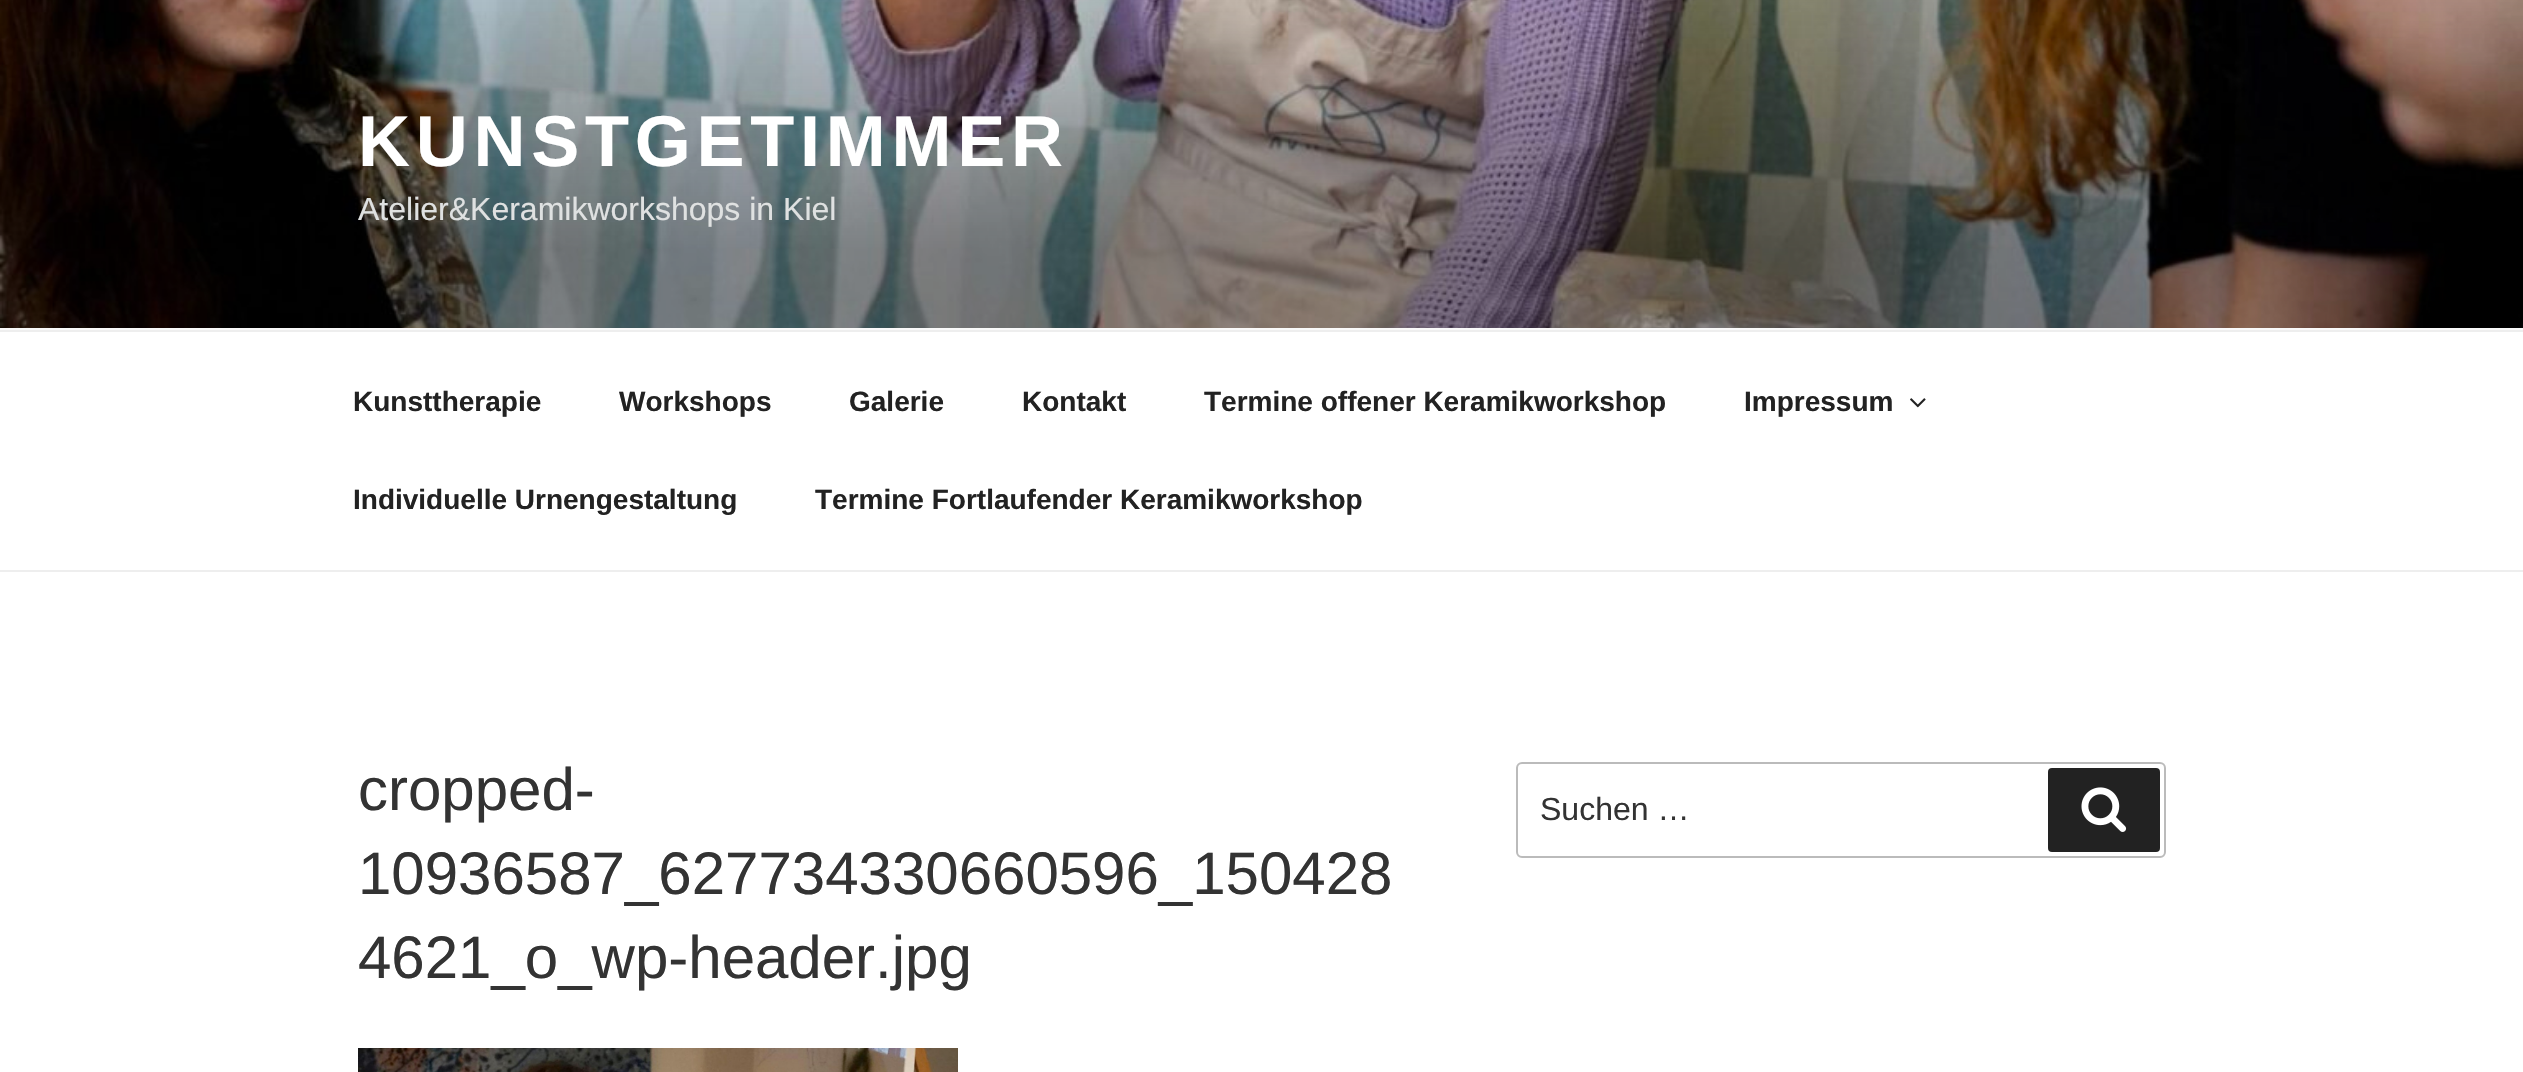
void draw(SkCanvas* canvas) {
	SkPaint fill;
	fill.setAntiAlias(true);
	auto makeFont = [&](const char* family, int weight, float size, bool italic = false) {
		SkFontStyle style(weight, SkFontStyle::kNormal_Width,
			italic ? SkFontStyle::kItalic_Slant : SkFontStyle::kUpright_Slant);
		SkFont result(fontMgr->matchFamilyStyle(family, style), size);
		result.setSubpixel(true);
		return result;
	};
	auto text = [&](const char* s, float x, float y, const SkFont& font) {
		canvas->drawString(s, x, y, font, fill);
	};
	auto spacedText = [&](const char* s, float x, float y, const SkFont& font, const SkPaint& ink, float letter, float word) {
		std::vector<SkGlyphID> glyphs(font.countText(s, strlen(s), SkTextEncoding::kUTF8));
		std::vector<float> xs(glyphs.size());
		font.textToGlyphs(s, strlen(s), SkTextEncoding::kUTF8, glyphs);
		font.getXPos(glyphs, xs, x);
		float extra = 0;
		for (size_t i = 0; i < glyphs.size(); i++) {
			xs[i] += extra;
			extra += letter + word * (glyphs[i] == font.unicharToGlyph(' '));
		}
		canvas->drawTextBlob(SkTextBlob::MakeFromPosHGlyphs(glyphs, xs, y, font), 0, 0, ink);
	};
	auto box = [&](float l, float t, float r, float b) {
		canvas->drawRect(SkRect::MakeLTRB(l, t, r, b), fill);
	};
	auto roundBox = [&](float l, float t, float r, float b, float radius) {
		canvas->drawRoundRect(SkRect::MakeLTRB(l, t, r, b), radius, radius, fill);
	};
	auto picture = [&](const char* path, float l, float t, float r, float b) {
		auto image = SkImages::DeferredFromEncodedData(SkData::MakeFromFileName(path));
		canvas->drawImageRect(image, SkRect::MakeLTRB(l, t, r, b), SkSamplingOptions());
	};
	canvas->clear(0xFFFFFFFF);
	fill.setColor(0xFFFAFAFA);
	box(0, 328, 2523, 330);
	picture("image0.png", 0, 0, 2523, 328);
	fill.setColor(0xFFEEEEEE);
	box(0, 330, 2523, 332);
	box(0, 570, 2523, 572);
	picture("image1.png", 1910, 398, 1926, 408);
	picture("image2.png", 358, 1048, 958, 1072);
	fill.setStyle(SkPaint::kStroke_Style);
	fill.setStrokeWidth(2);
	fill.setColor(0xFFBBBBBB);
	canvas->drawRoundRect(SkRect::MakeLTRB(1517, 763, 2165, 857), 5, 5, fill);
	fill.setStyle(SkPaint::kFill_Style);
	fill.setColor(0xFF222222);
	roundBox(2048, 768, 2160, 852, 4);
	picture("image3.png", 2081, 787, 2127, 832);
	auto font1 = makeFont("Liberation Sans", 700, 72);
	fill.setColor(0xFFFFFFFF);
	spacedText("KUNSTGETIMMER", 358, 166, font1, fill, 5.75f, 0);
	auto font2 = makeFont("Liberation Sans", 400, 32);
	fill.setColor(0xFFDFE1E1);
	text("Atelier&Keramikworkshops in Kiel", 358, 220, font2);
	auto font3 = makeFont("Liberation Sans", 700, 28);
	fill.setColor(0xFF222222);
	text("Kunsttherapie", 353, 411, font3);
	text("Workshops", 619, 411, font3);
	text("Galerie", 849, 411, font3);
	text("Kontakt", 1022, 411, font3);
	text("Termine offener Keramikworkshop", 1204, 411, font3);
	text("Impressum", 1744, 411, font3);
	text("Individuelle Urnengestaltung", 353, 509, font3);
	text("Termine Fortlaufender Keramikworkshop", 815, 509, font3);
	auto font4 = makeFont("Liberation Sans", 400, 60);
	fill.setColor(0xFF333333);
	text("cropped-", 358, 810, font4);
	text("10936587_627734330660596_150428", 358, 894, font4);
	text("4621_o_wp-header.jpg", 358, 978, font4);
	text("Suchen …", 1540, 820, font2);
}
